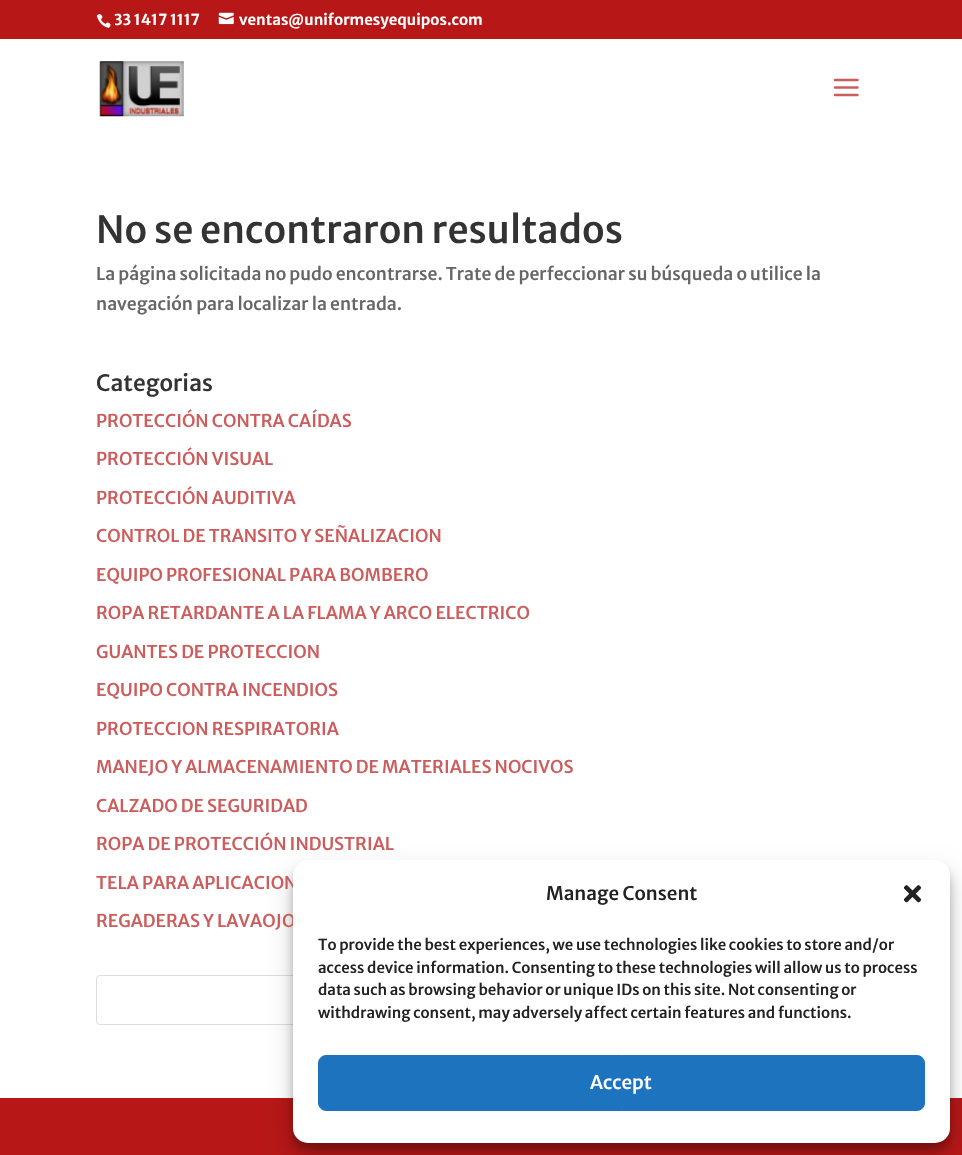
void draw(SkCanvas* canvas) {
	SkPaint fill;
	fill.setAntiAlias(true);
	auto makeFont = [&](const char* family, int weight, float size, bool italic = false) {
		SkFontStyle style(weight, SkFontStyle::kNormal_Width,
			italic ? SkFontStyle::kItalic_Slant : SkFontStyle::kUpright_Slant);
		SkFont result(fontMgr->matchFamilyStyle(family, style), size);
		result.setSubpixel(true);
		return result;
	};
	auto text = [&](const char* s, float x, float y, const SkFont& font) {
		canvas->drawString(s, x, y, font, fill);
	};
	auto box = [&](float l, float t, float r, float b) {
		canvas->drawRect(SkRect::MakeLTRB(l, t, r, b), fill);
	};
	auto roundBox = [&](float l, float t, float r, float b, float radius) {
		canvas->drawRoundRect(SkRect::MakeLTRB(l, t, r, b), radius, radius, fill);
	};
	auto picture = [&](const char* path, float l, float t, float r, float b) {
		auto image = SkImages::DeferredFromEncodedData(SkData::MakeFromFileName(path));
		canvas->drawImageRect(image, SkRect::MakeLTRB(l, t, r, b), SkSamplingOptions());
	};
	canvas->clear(0xFFFFFFFF);
	fill.setColor(0xFFB71717);
	box(0, 0, 962, 39);
	picture("image0.png", 96, 14, 111, 28);
	picture("image1.png", 218, 12, 234, 25);
	picture("image2.png", 99, 61, 184, 117);
	picture("image3.png", 833, 78, 859, 97);
	fill.setStyle(SkPaint::kStroke_Style);
	fill.setStrokeWidth(1);
	fill.setColor(0xFFDDDDDD);
	canvas->drawRoundRect(SkRect::MakeLTRB(96.5f, 975.5f, 865.5f, 1024.5f), 3.5f, 3.5f, fill);
	fill.setStyle(SkPaint::kFill_Style);
	fill.setColor(0xFFB71717);
	box(0, 1098, 962, 1155);
	fill.setColor(0x3B000000);
	fill.setMaskFilter(SkMaskFilter::MakeBlur(kNormal_SkBlurStyle, 4));
	canvas->drawRoundRect(SkRect::MakeLTRB(293, 868, 950, 1150), 15, 15, fill);
	fill.setMaskFilter(nullptr);
	fill.setColor(0x30000000);
	fill.setMaskFilter(SkMaskFilter::MakeBlur(kNormal_SkBlurStyle, 12.5f));
	canvas->drawRoundRect(SkRect::MakeLTRB(293, 873, 950, 1155), 15, 15, fill);
	fill.setMaskFilter(nullptr);
	auto font1 = makeFont("Merriweather Sans", 600, 15);
	fill.setColor(0xFFFFFFFF);
	text("33 1417 1117", 114, 25, font1);
	text("ventas@uniformesyequipos.com", 239, 25, font1);
	auto font2 = makeFont("Merriweather Sans", 500, 37.5f);
	fill.setColor(0xFF333333);
	text("No se encontraron resultados", 96, 243, font2);
	auto font3 = makeFont("Merriweather Sans", 500, 17.5f);
	fill.setColor(0xFF666666);
	text("La página solicitada no pudo encontrarse. Trate de perfeccionar su búsqueda o utilice la", 96, 280, font3);
	text("navegación para localizar la entrada.", 96, 310, font3);
	auto font4 = makeFont("Merriweather Sans", 500, 22.5f);
	fill.setColor(0xFF333333);
	text("Categorias", 96, 391, font4);
	fill.setColor(0xFFCD5C5C);
	text("PROTECCIÓN CONTRA CAÍDAS", 96, 427, font3);
	text("PROTECCIÓN VISUAL", 96, 465, font3);
	text("PROTECCIÓN AUDITIVA", 96, 504, font3);
	text("CONTROL DE TRANSITO Y SEÑALIZACION", 96, 542, font3);
	text("EQUIPO PROFESIONAL PARA BOMBERO", 96, 581, font3);
	text("ROPA RETARDANTE A LA FLAMA Y ARCO ELECTRICO", 96, 619, font3);
	text("GUANTES DE PROTECCION", 96, 658, font3);
	text("EQUIPO CONTRA INCENDIOS", 96, 696, font3);
	text("PROTECCION RESPIRATORIA", 96, 735, font3);
	text("MANEJO Y ALMACENAMIENTO DE MATERIALES NOCIVOS", 96, 773, font3);
	text("CALZADO DE SEGURIDAD", 96, 812, font3);
	text("ROPA DE PROTECCIÓN INDUSTRIAL", 96, 850, font3);
	text("TELA PARA APLICACION", 96, 889, font3);
	text("REGADERAS Y LAVAOJO", 96, 927, font3);
	fill.setColor(0xFFFFFFFF);
	roundBox(293, 860, 950, 1143, 15);
	auto font5 = makeFont("Merriweather Sans", 500, 18.75f);
	fill.setColor(0xFF222222);
	text("Manage Consent", 546, 900, font5);
	picture("image4.png", 903, 885, 922, 903);
	auto font6 = makeFont("Merriweather Sans", 500, 15);
	text("To provide the best experiences, we use technologies like cookies to store and/or", 318, 950, font6);
	text("access device information. Consenting to these technologies will allow us to process", 318, 973, font6);
	text("data such as browsing behavior or unique IDs on this site. Not consenting or", 318, 995, font6);
	text("withdrawing consent, may adversely affect certain features and functions.", 318, 1018, font6);
	fill.setColor(0xFF1E73BE);
	canvas->drawRoundRect(SkRect::MakeLTRB(318.5f, 1055.5f, 924.5f, 1110.5f), 7.5f, 7.5f, fill);
	fill.setStyle(SkPaint::kStroke_Style);
	canvas->drawRoundRect(SkRect::MakeLTRB(318.5f, 1055.5f, 924.5f, 1110.5f), 7.5f, 7.5f, fill);
	fill.setStyle(SkPaint::kFill_Style);
	fill.setColor(0xFFFFFFFF);
	text("Accept", 590, 1089, font5);
}
